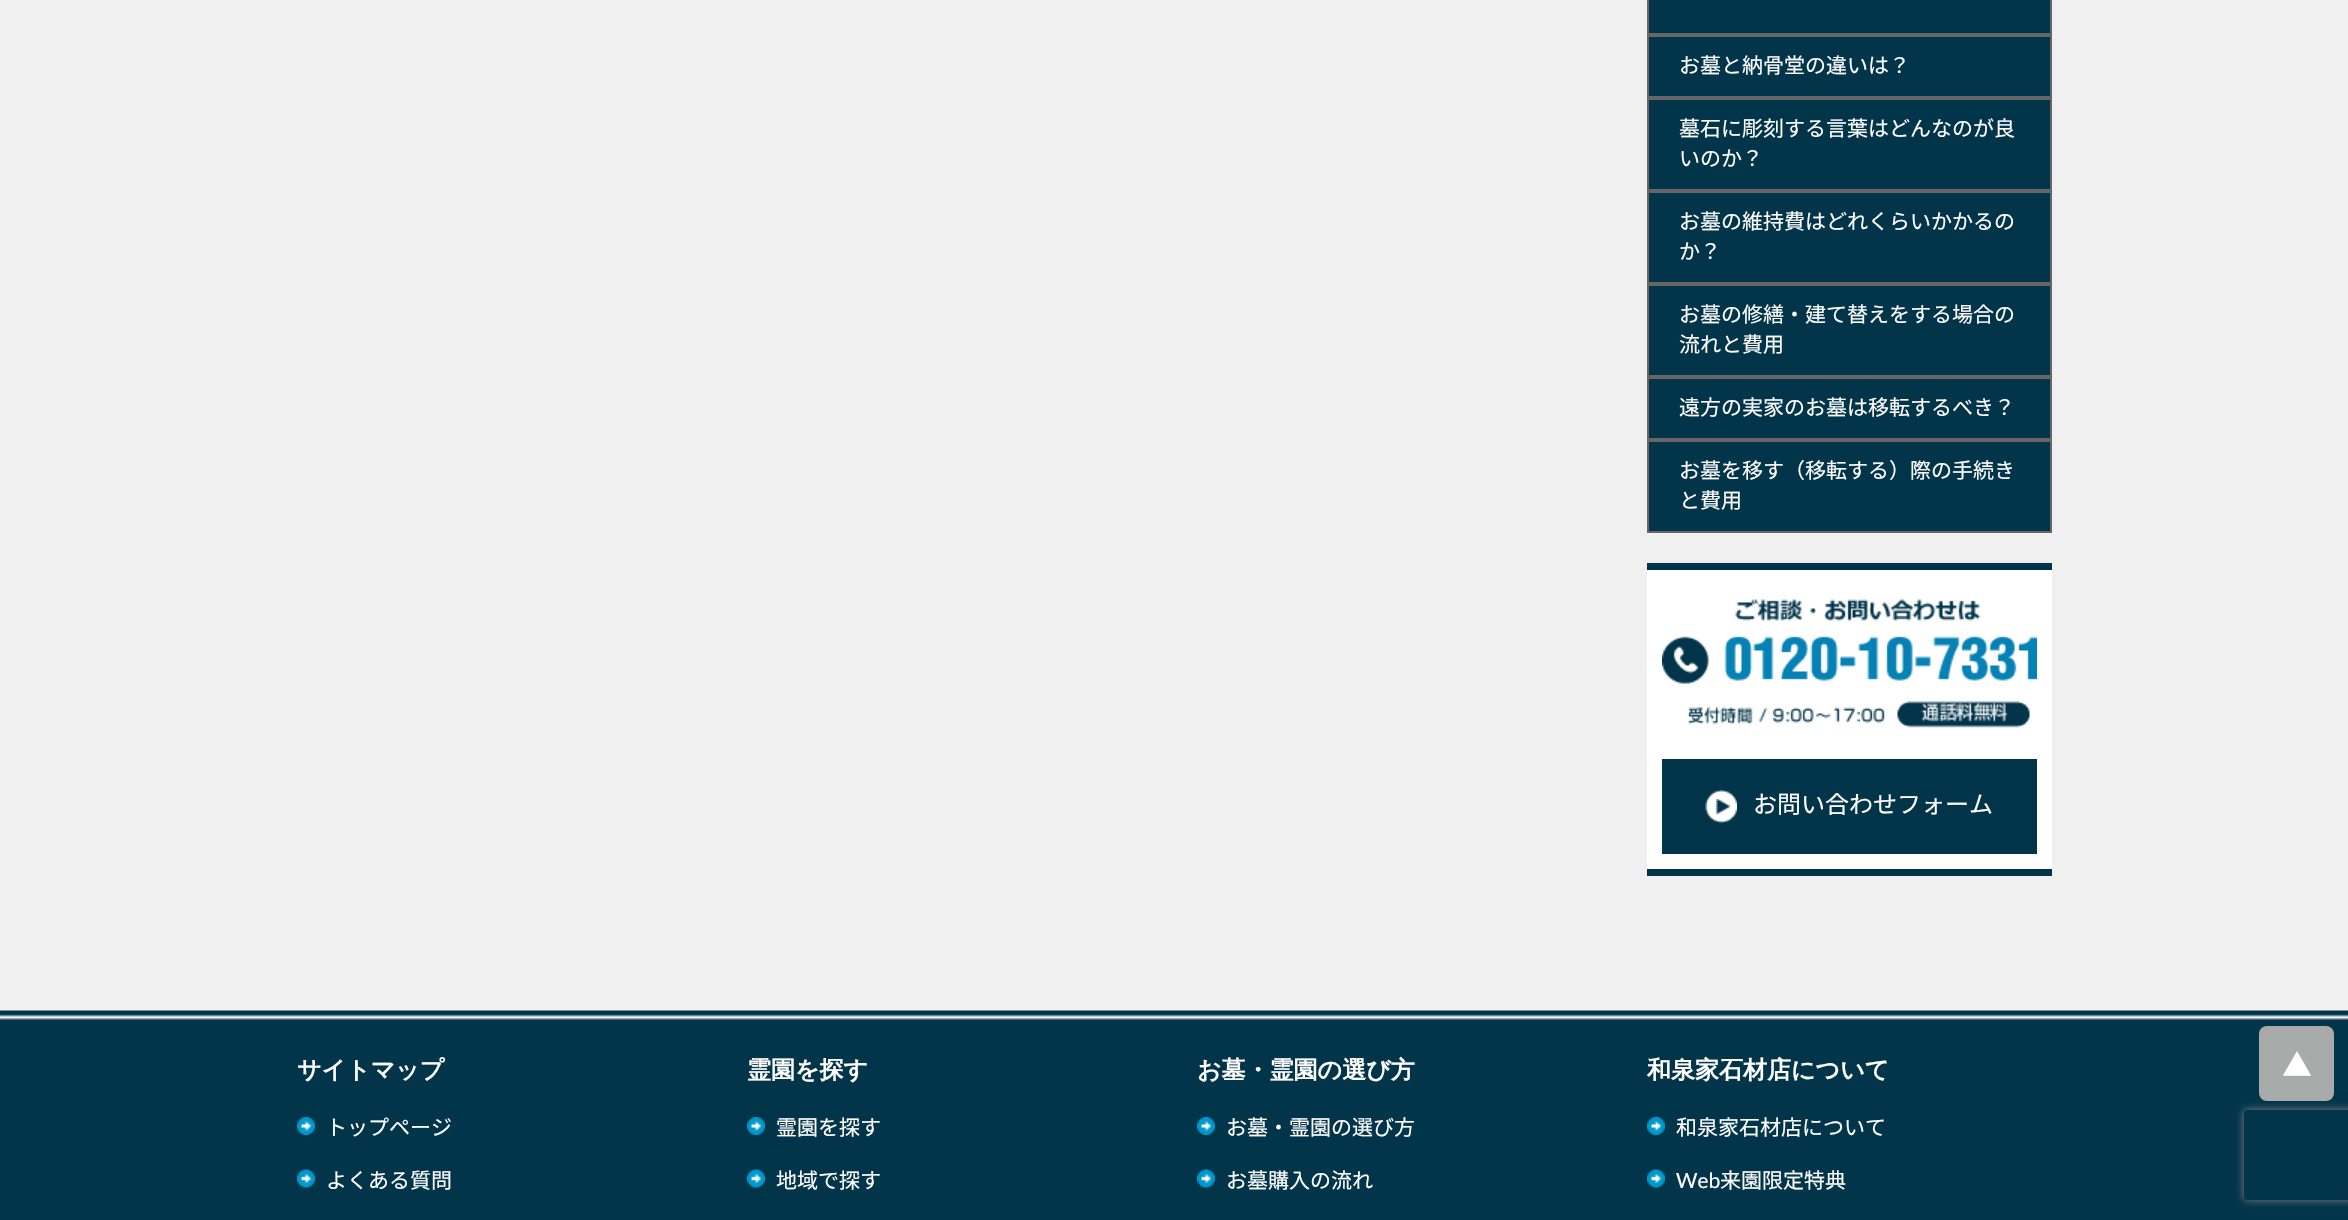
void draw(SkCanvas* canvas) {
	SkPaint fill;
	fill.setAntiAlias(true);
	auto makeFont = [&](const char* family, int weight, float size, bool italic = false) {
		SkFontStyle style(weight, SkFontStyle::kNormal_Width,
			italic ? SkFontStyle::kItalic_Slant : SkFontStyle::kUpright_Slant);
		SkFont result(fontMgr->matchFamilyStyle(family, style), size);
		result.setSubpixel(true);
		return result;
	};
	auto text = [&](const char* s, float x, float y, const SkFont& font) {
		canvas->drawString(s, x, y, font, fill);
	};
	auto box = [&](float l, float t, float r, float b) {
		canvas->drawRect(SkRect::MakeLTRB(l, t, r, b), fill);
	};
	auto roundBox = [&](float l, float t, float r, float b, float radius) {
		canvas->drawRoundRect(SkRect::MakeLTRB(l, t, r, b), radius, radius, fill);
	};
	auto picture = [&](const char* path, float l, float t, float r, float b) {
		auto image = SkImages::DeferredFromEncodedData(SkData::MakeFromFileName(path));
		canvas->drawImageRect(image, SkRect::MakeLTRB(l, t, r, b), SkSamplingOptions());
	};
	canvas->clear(0xFFF0F0F0);
	fill.setColor(0xFF02344A);
	canvas->drawRect(SkRect::MakeLTRB(1648, -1, 2051, 34), fill);
	fill.setStyle(SkPaint::kStroke_Style);
	fill.setStrokeWidth(2);
	fill.setColor(0xFF666666);
	canvas->drawRect(SkRect::MakeLTRB(1648, -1, 2051, 34), fill);
	fill.setStyle(SkPaint::kFill_Style);
	fill.setColor(0xFF02344A);
	canvas->drawRect(SkRect::MakeLTRB(1648, 36, 2051, 97), fill);
	fill.setStyle(SkPaint::kStroke_Style);
	fill.setColor(0xFF666666);
	canvas->drawRect(SkRect::MakeLTRB(1648, 36, 2051, 97), fill);
	fill.setStyle(SkPaint::kFill_Style);
	fill.setColor(0xFF02344A);
	canvas->drawRect(SkRect::MakeLTRB(1648, 99, 2051, 190), fill);
	fill.setStyle(SkPaint::kStroke_Style);
	fill.setColor(0xFF666666);
	canvas->drawRect(SkRect::MakeLTRB(1648, 99, 2051, 190), fill);
	fill.setStyle(SkPaint::kFill_Style);
	fill.setColor(0xFF02344A);
	canvas->drawRect(SkRect::MakeLTRB(1648, 192, 2051, 283), fill);
	fill.setStyle(SkPaint::kStroke_Style);
	fill.setColor(0xFF666666);
	canvas->drawRect(SkRect::MakeLTRB(1648, 192, 2051, 283), fill);
	fill.setStyle(SkPaint::kFill_Style);
	fill.setColor(0xFF02344A);
	canvas->drawRect(SkRect::MakeLTRB(1648, 285, 2051, 376), fill);
	fill.setStyle(SkPaint::kStroke_Style);
	fill.setColor(0xFF666666);
	canvas->drawRect(SkRect::MakeLTRB(1648, 285, 2051, 376), fill);
	fill.setStyle(SkPaint::kFill_Style);
	fill.setColor(0xFF02344A);
	canvas->drawRect(SkRect::MakeLTRB(1648, 378, 2051, 439), fill);
	fill.setStyle(SkPaint::kStroke_Style);
	fill.setColor(0xFF666666);
	canvas->drawRect(SkRect::MakeLTRB(1648, 378, 2051, 439), fill);
	fill.setStyle(SkPaint::kFill_Style);
	fill.setColor(0xFF02344A);
	canvas->drawRect(SkRect::MakeLTRB(1648, 441, 2051, 532), fill);
	fill.setStyle(SkPaint::kStroke_Style);
	fill.setColor(0xFF666666);
	canvas->drawRect(SkRect::MakeLTRB(1648, 441, 2051, 532), fill);
	fill.setStyle(SkPaint::kFill_Style);
	fill.setColor(0xFFFFFFFF);
	box(1647, 570, 2052, 869);
	fill.setColor(0xFF02344A);
	box(1647, 563, 2052, 570);
	box(1647, 869, 2052, 876);
	picture("image0.png", 1662, 599, 2037, 728);
	box(1662, 759, 2037, 854);
	picture("image1.png", 1705, 790, 1737, 823);
	box(0, 1019, 2348, 1220);
	picture("image2.png", 0, 1010, 2348, 1020);
	picture("image3.png", 297, 1117, 315, 1135);
	picture("image4.png", 297, 1169, 315, 1188);
	picture("image3.png", 747, 1117, 765, 1135);
	picture("image4.png", 747, 1169, 765, 1188);
	picture("image3.png", 1197, 1117, 1215, 1135);
	picture("image4.png", 1197, 1169, 1215, 1188);
	picture("image5.png", 1647, 1117, 1665, 1135);
	picture("image6.png", 1647, 1169, 1665, 1188);
	fill.setColor(0xFFA9AAAA);
	roundBox(2259, 1026, 2334, 1101, 8);
	canvas->save();
	canvas->clipPath(SkPathBuilder(SkPathFillType::kEvenOdd).moveTo(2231, 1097).lineTo(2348, 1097).lineTo(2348, 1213).lineTo(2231, 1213).close().moveTo(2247, 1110).lineTo(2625, 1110).cubicTo(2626.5f, 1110, 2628, 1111.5f, 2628, 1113).lineTo(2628, 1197).cubicTo(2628, 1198.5f, 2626.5f, 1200, 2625, 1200).lineTo(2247, 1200).cubicTo(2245.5f, 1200, 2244, 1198.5f, 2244, 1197).lineTo(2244, 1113).cubicTo(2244, 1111.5f, 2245.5f, 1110, 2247, 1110).close().detach(), true);
	fill.setColor(0xFF808080);
	fill.setMaskFilter(SkMaskFilter::MakeBlur(kNormal_SkBlurStyle, 4));
	canvas->drawRoundRect(SkRect::MakeLTRB(2244, 1110, 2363, 1200), 3, 3, fill);
	fill.setMaskFilter(nullptr);
	canvas->restore();
	auto font1 = makeFont("Noto Sans JP", 400, 21);
	fill.setColor(0xFFFFFFFF);
	text("お墓と納骨堂の違いは？", 1679, 73, font1);
	text("墓石に彫刻する言葉はどんなのが良", 1679, 136, font1);
	text("いのか？", 1679, 166, font1);
	text("お墓の維持費はどれくらいかかるの", 1679, 229, font1);
	text("か？", 1679, 259, font1);
	text("お墓の修繕・建て替えをする場合の", 1679, 322, font1);
	text("流れと費用", 1679, 352, font1);
	text("遠方の実家のお墓は移転するべき？", 1679, 415, font1);
	text("お墓を移す（移転する）際の手続き", 1679, 478, font1);
	text("と費用", 1679, 508, font1);
	auto font2 = makeFont("Noto Sans JP", 400, 24);
	text("お問い合わせフォーム", 1753, 813, font2);
	auto font3 = makeFont("WenQuanYi Zen Hei", 700, 24);
	text("サイトマップ", 297, 1078, font3);
	text("トップページ", 326, 1135, font1);
	text("よくある質問", 326, 1188, font1);
	text("霊園を探す", 747, 1078, font3);
	text("霊園を探す", 776, 1135, font1);
	text("地域で探す", 776, 1188, font1);
	text("お墓・霊園の選び方", 1197, 1078, font3);
	text("お墓・霊園の選び方", 1226, 1135, font1);
	text("お墓購入の流れ", 1226, 1188, font1);
	text("和泉家石材店について", 1647, 1078, font3);
	text("和泉家石材店について", 1676, 1135, font1);
	auto font4 = makeFont("Lato", 400, 21);
	text("Web", 1676, 1188, font4);
	text("来園限定特典", 1720, 1188, font1);
	auto font5 = makeFont("Noto Sans JP", 400, 30);
	text("▲", 2282, 1076, font5);
}
